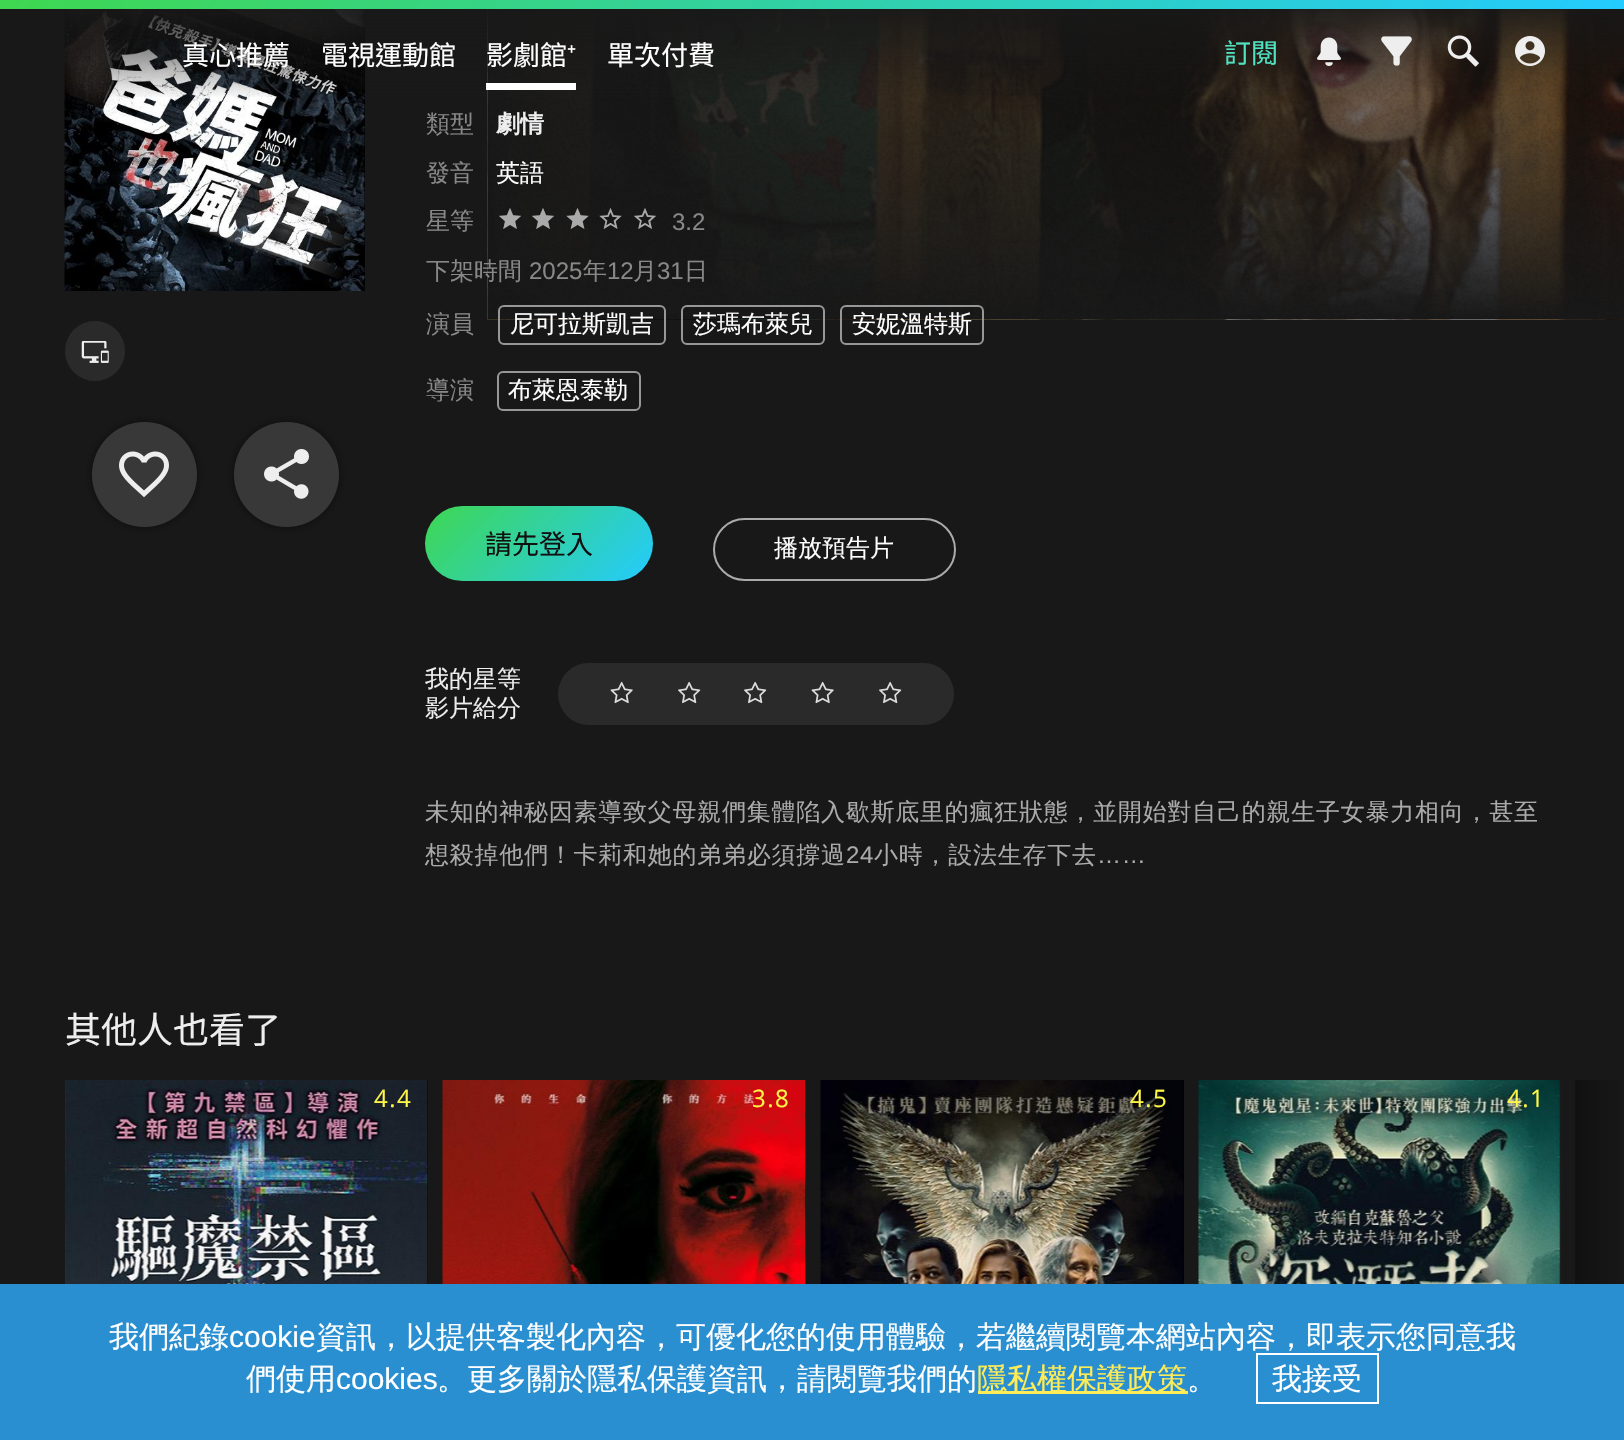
void draw(SkCanvas* canvas) {
	SkPaint fill;
	fill.setAntiAlias(true);
	auto makeFont = [&](const char* family, int weight, float size, bool italic = false) {
		SkFontStyle style(weight, SkFontStyle::kNormal_Width,
			italic ? SkFontStyle::kItalic_Slant : SkFontStyle::kUpright_Slant);
		SkFont result(fontMgr->matchFamilyStyle(family, style), size);
		result.setSubpixel(true);
		return result;
	};
	auto text = [&](const char* s, float x, float y, const SkFont& font) {
		canvas->drawString(s, x, y, font, fill);
	};
	auto spacedText = [&](const char* s, float x, float y, const SkFont& font, const SkPaint& ink, float letter, float word) {
		std::vector<SkGlyphID> glyphs(font.countText(s, strlen(s), SkTextEncoding::kUTF8));
		std::vector<float> xs(glyphs.size());
		font.textToGlyphs(s, strlen(s), SkTextEncoding::kUTF8, glyphs);
		font.getXPos(glyphs, xs, x);
		float extra = 0;
		for (size_t i = 0; i < glyphs.size(); i++) {
			xs[i] += extra;
			extra += letter + word * (glyphs[i] == font.unicharToGlyph(' '));
		}
		canvas->drawTextBlob(SkTextBlob::MakeFromPosHGlyphs(glyphs, xs, y, font), 0, 0, ink);
	};
	auto box = [&](float l, float t, float r, float b) {
		canvas->drawRect(SkRect::MakeLTRB(l, t, r, b), fill);
	};
	auto roundBox = [&](float l, float t, float r, float b, float radius) {
		canvas->drawRoundRect(SkRect::MakeLTRB(l, t, r, b), radius, radius, fill);
	};
	auto picture = [&](const char* path, float l, float t, float r, float b) {
		auto image = SkImages::DeferredFromEncodedData(SkData::MakeFromFileName(path));
		canvas->drawImageRect(image, SkRect::MakeLTRB(l, t, r, b), SkSamplingOptions());
	};
	canvas->clear(0xFF181818);
	picture("image4.png", 487, 9, 1624, 320);
	picture("image5.png", 487, 9, 1624, 320);
	picture("image6.png", 487, 9, 1624, 320);
	fill.setColor(0xFF000000);
	box(364, 9, 365, 291);
	picture("image7.png", 64, 9, 365, 291);
	{
		const SkColor colors[] = {0xFF181818, 0x00181818};
		const float stops[] = {0, 1};
		const SkPoint ends[] = {{812, 0}, {812, 99}};
		fill.setShader(SkGradientShader::MakeLinear(ends, colors, stops, 2, SkTileMode::kClamp));
		fill.setAlpha(255);
	}
	box(64, 9, 1624, 97);
	{
		const SkColor colors[] = {0xFF3FD750, 0xFF24CBFF};
		const float stops[] = {0, 1};
		const SkPoint ends[] = {{400, -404}, {1225, 413}};
		fill.setShader(SkGradientShader::MakeLinear(ends, colors, stops, 2, SkTileMode::kClamp));
		fill.setAlpha(255);
	}
	box(0, 0, 1624, 9);
	fill.setShader(nullptr);
	fill.setColor(0xFFFFFFFF);
	box(486, 83, 576, 90);
	picture("image0.png", 1317, 37, 1341, 66);
	picture("image1.png", 1381, 36, 1412, 66);
	picture("image2.png", 1447, 35, 1479, 67);
	picture("image3.png", 1515, 36, 1545, 66);
	fill.setColor(0xFF2A2A2A);
	canvas->drawCircle(95, 351, 30, fill);
	picture("image8.png", 81, 341, 109, 363);
	fill.setColor(0x80000000);
	fill.setMaskFilter(SkMaskFilter::MakeBlur(kNormal_SkBlurStyle, 4));
	canvas->drawRoundRect(SkRect::MakeLTRB(92, 422, 197, 527), 52.5f, 52.5f, fill);
	fill.setMaskFilter(nullptr);
	fill.setColor(0xFF383838);
	canvas->drawCircle(144.5f, 474.5f, 52.5f, fill);
	picture("image9.png", 119, 451, 169, 498);
	fill.setColor(0x80000000);
	fill.setMaskFilter(SkMaskFilter::MakeBlur(kNormal_SkBlurStyle, 4));
	canvas->drawRoundRect(SkRect::MakeLTRB(234, 422, 339, 527), 52.5f, 52.5f, fill);
	fill.setMaskFilter(nullptr);
	fill.setColor(0xFF383838);
	canvas->drawCircle(286.5f, 474.5f, 52.5f, fill);
	picture("image10.png", 264, 449, 309, 499);
	picture("image11.png", 499, 208, 521, 229);
	picture("image12.png", 532, 208, 554, 229);
	picture("image13.png", 566, 207, 589, 229);
	picture("image14.png", 599, 207, 622, 229);
	picture("image15.png", 634, 208, 656, 229);
	fill.setStyle(SkPaint::kStroke_Style);
	fill.setStrokeWidth(2);
	fill.setColor(0xFF979797);
	canvas->drawRoundRect(SkRect::MakeLTRB(499, 306, 665, 344), 5, 5, fill);
	canvas->drawRoundRect(SkRect::MakeLTRB(682, 306, 824, 344), 5, 5, fill);
	canvas->drawRoundRect(SkRect::MakeLTRB(841, 306, 983, 344), 5, 5, fill);
	canvas->drawRoundRect(SkRect::MakeLTRB(498, 372, 640, 410), 5, 5, fill);
	fill.setStyle(SkPaint::kFill_Style);
	{
		const SkColor colors[] = {0xFF3FD750, 0xFF24CBFF};
		const float stops[] = {0, 1};
		const SkPoint ends[] = {{462, 467}, {615, 619}};
		fill.setShader(SkGradientShader::MakeLinear(ends, colors, stops, 2, SkTileMode::kClamp));
		fill.setAlpha(255);
	}
	roundBox(425, 506, 653, 581, 37.5f);
	fill.setStyle(SkPaint::kStroke_Style);
	fill.setShader(nullptr);
	fill.setColor(0xFFAAAAAA);
	canvas->drawRoundRect(SkRect::MakeLTRB(714, 519, 955, 580), 30.5f, 30.5f, fill);
	fill.setStyle(SkPaint::kFill_Style);
	fill.setColor(0xFF2A2A2A);
	roundBox(558, 663, 954, 725, 31);
	picture("image16.png", 610, 681, 633, 704);
	picture("image17.png", 678, 681, 701, 704);
	picture("image17.png", 744, 681, 767, 704);
	picture("image16.png", 811, 681, 834, 704);
	picture("image17.png", 879, 681, 902, 704);
	fill.setColor(0xFF000000);
	box(427, 1080, 428, 1284);
	picture("image18.png", 65, 1080, 428, 1284);
	box(805, 1080, 806, 1284);
	picture("image19.png", 442, 1080, 806, 1284);
	box(1183, 1080, 1184, 1284);
	picture("image20.png", 820, 1080, 1184, 1284);
	picture("image21.png", 1198, 1080, 1561, 1284);
	box(1575, 1080, 1624, 1284);
	{
		const SkColor colors[] = {0x99181818, 0xFF181818};
		const float stops[] = {0, 1};
		const SkPoint ends[] = {{1560, 1360}, {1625, 1360}};
		fill.setShader(SkGradientShader::MakeLinear(ends, colors, stops, 2, SkTileMode::kClamp));
		fill.setAlpha(255);
	}
	box(1560, 1080, 1624, 1284);
	fill.setShader(nullptr);
	fill.setColor(0xFF298FD1);
	box(0, 1284, 1624, 1440);
	fill.setColor(0xFFFDEC57);
	box(978, 1391, 1188, 1394);
	fill.setStyle(SkPaint::kStroke_Style);
	fill.setColor(0xFFFFFFFF);
	canvas->drawRect(SkRect::MakeLTRB(1257, 1354, 1378, 1403), fill);
	auto font1 = makeFont("Noto Sans TC", 100, 27);
	fill.setStyle(SkPaint::kFill_Style);
	text("真心推薦", 182, 65, font1);
	text("電視運動館", 321, 65, font1);
	text("影劇館", 486, 65, font1);
	auto font2 = makeFont("Noto Sans", 400, 27);
	text("⁺", 567, 65, font2);
	text("單次付費", 607, 65, font1);
	fill.setColor(0xFF50E3C2);
	text("訂閱", 1224, 63, font1);
	auto font3 = makeFont("WenQuanYi Zen Hei", 500, 24);
	fill.setColor(0xFF888888);
	text("類型", 426, 132, font3);
	auto font4 = makeFont("WenQuanYi Zen Hei", 700, 24);
	fill.setColor(0xFFEEEEEE);
	text("劇情", 496, 132, font4);
	fill.setColor(0xFF888888);
	text("發音", 426, 181, font3);
	fill.setColor(0xFFFFFFFF);
	text("英語", 496, 181, font3);
	fill.setColor(0xFF888888);
	text("星等", 426, 229, font3);
	auto font5 = makeFont("Liberation Sans", 400, 24);
	text("3.2", 672, 230, font5);
	text("下架時間", 426, 279, font3);
	text("2025", 529, 279, font5);
	text("年", 583, 279, font3);
	text("12", 607, 279, font5);
	text("月", 633, 279, font3);
	text("31", 657, 279, font5);
	text("日", 684, 279, font3);
	text("演員", 426, 332, font3);
	fill.setColor(0xFFFFFFFF);
	text("尼可拉斯凱吉", 510, 332, font3);
	text("莎瑪布萊兒", 693, 332, font3);
	text("安妮溫特斯", 852, 332, font3);
	fill.setColor(0xFF888888);
	text("導演", 426, 398, font3);
	fill.setColor(0xFFFFFFFF);
	text("布萊恩泰勒", 508, 398, font3);
	fill.setColor(0xFF111111);
	text("請先登入", 485, 554, font1);
	fill.setColor(0xFFFFFFFF);
	text("播放預告片", 774, 556, font3);
	fill.setColor(0xFFEEEEEE);
	text("我的星等", 425, 687, font3);
	text("影片給分", 425, 716, font3);
	fill.setColor(0xFFAAAAAA);
	spacedText("未知的神秘因素導致父母親們集體陷入歇斯底里的瘋狂狀態，並開始對自己的親生子女暴力相向，甚至", 425, 820, font3, fill, 0.75f, 0);
	spacedText("想殺掉他們！卡莉和她的弟弟必須撐過", 425, 863, font3, fill, 0.75f, 0);
	spacedText("24", 846, 863, font5, fill, 0.75f, 0);
	spacedText("小時，設法生存下去", 874, 863, font3, fill, 0.75f, 0);
	spacedText("……", 1097, 863, font5, fill, 0.75f, 0);
	auto font6 = makeFont("Noto Sans TC", 100, 36);
	fill.setColor(0xFFEEEEEE);
	text("其他人也看了", 65, 1043, font6);
	auto font7 = makeFont("Open Sans", 400, 24);
	fill.setColor(0xFFFFF646);
	spacedText("4.4", 374, 1107, font7, fill, 1.5f, 0);
	spacedText("3.8", 752, 1107, font7, fill, 1.5f, 0);
	spacedText("4.5", 1130, 1107, font7, fill, 1.5f, 0);
	spacedText("4.1", 1507, 1107, font7, fill, 1.5f, 0);
	auto font8 = makeFont("WenQuanYi Zen Hei", 500, 30);
	fill.setColor(0xFFFFFFFF);
	text("我們紀錄", 109, 1347, font8);
	auto font9 = makeFont("Liberation Sans", 400, 30);
	text("cookie", 229, 1347, font9);
	text("資訊，以提供客製化內容，可優化您的使用體驗，若繼續閱覽本網站內容，即表示您同意我", 316, 1347, font8);
	text("們使用", 246, 1389, font8);
	text("cookies", 336, 1389, font9);
	text("。更多關於隱私保護資訊，請閱覽我們的", 437, 1389, font8);
	fill.setColor(0xFFFDEC57);
	text("隱私權保護政策", 977, 1389, font8);
	fill.setColor(0xFFFFFFFF);
	text("。", 1187, 1389, font8);
	text("我接受", 1272, 1389, font8);
}
